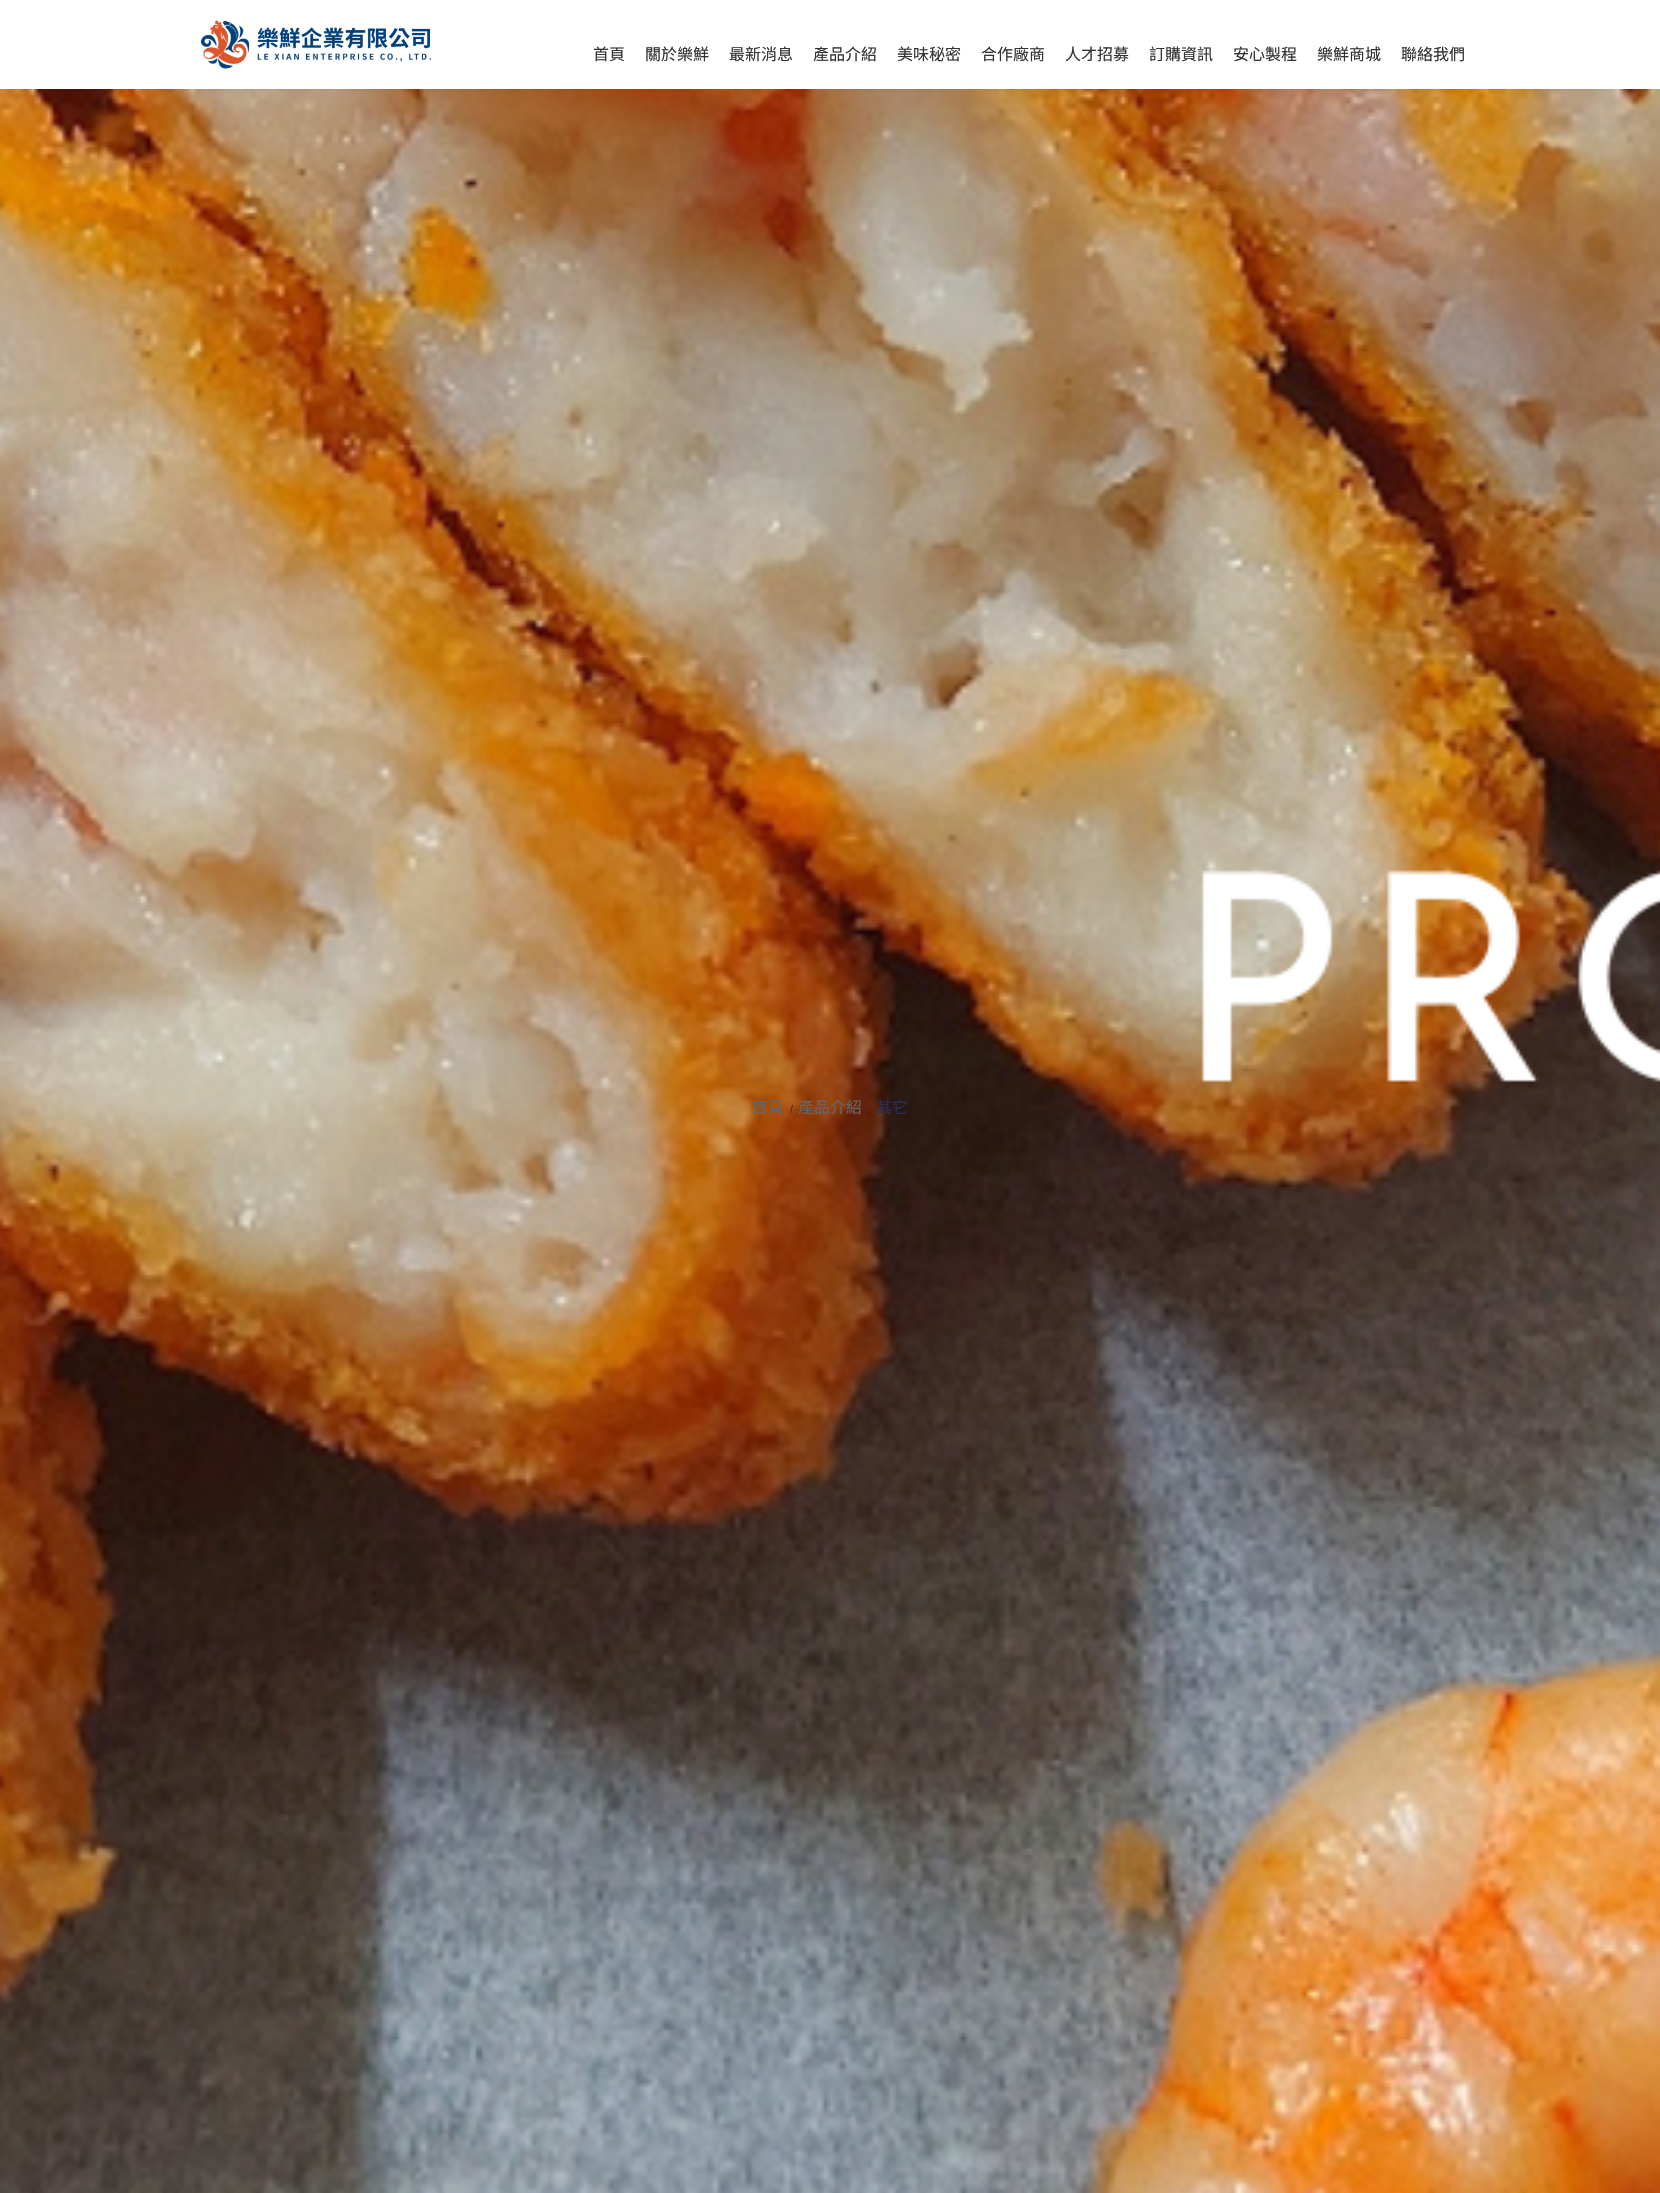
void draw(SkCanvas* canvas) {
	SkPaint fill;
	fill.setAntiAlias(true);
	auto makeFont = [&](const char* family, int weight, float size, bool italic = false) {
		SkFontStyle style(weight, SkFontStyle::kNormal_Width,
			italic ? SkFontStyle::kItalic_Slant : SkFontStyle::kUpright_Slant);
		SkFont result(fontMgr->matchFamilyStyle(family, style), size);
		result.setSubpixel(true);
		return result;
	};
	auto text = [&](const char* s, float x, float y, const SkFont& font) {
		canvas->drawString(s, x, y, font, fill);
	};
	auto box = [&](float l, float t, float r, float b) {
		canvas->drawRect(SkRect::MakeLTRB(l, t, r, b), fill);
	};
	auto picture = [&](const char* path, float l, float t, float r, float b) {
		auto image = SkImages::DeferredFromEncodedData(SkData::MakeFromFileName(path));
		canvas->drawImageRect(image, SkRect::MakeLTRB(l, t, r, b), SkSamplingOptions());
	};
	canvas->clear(0xFFFFFFFF);
	picture("image1.png", 0, 89, 1660, 2193);
	fill.setColor(0x33000000);
	fill.setMaskFilter(SkMaskFilter::MakeBlur(kNormal_SkBlurStyle, 2.5f));
	canvas->drawRect(SkRect::MakeLTRB(0, -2, 1660, 87), fill);
	fill.setMaskFilter(nullptr);
	fill.setColor(0xFFFFFFFF);
	box(0, 0, 1660, 89);
	picture("image0.png", 200, 20, 432, 69);
	auto font1 = makeFont("Noto Sans CJK TC", 400, 16);
	fill.setColor(0xFF333333);
	text("首頁", 593, 60, font1);
	text("關於樂鮮", 645, 60, font1);
	text("最新消息", 729, 60, font1);
	text("產品介紹", 813, 60, font1);
	text("美味秘密", 897, 60, font1);
	text("合作廠商", 981, 60, font1);
	text("人才招募", 1065, 60, font1);
	text("訂購資訊", 1149, 60, font1);
	text("安心製程", 1233, 60, font1);
	text("樂鮮商城", 1317, 60, font1);
	text("聯絡我們", 1401, 60, font1);
	fill.setColor(0xFF666666);
	text("首頁", 752, 1113, font1);
	auto font2 = makeFont("Liberation Sans", 400, 11);
	fill.setColor(0xFF333333);
	text("/", 790, 1113, font2);
	fill.setColor(0xFF666666);
	text("產品介紹", 798, 1113, font1);
	fill.setColor(0xFF252F5C);
	text("其它", 876, 1113, font1);
}
